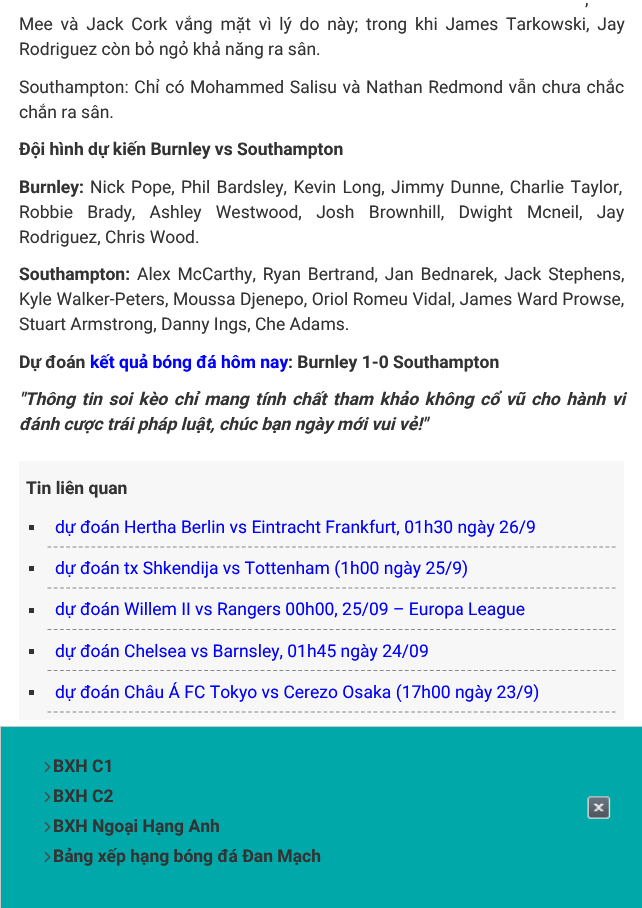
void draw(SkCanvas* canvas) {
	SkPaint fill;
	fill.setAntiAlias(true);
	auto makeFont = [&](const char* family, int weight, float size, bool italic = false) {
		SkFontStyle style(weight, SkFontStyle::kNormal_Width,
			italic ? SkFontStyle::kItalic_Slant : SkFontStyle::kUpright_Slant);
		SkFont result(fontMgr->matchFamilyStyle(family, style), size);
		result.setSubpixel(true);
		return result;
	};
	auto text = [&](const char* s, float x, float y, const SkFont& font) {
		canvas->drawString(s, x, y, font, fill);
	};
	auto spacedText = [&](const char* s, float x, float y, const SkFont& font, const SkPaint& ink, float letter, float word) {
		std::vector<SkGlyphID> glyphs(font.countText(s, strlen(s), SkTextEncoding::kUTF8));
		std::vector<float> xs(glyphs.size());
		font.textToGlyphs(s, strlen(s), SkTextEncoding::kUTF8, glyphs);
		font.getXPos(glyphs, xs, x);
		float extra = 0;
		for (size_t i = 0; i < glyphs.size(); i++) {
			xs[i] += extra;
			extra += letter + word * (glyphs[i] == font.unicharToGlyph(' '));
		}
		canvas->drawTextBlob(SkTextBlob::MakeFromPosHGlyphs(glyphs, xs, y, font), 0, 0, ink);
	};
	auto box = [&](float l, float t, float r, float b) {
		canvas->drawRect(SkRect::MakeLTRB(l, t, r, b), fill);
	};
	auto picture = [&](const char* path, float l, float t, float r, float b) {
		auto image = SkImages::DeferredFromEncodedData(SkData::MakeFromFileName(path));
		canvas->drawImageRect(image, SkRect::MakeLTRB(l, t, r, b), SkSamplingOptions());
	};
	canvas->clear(0xFFFFFFFF);
	fill.setColor(0xFFF7F7F7);
	box(19, 461, 624, 720);
	fill.setStyle(SkPaint::kStroke_Style);
	fill.setStrokeWidth(1.2f);
	fill.setColor(0xFF888888);
	fill.setPathEffect(SkDashPathEffect::Make({{3.75f, 2.52f}}, 0));
	canvas->drawPath(SkPathBuilder().moveTo(47.5f, 547).lineTo(616, 547).detach(), fill);
	fill.setPathEffect(nullptr);
	fill.setStyle(SkPaint::kFill_Style);
	fill.setColor(0xFF333333);
	box(29, 525, 34, 530);
	fill.setStyle(SkPaint::kStroke_Style);
	fill.setColor(0xFF888888);
	fill.setPathEffect(SkDashPathEffect::Make({{3.75f, 2.52f}}, 0));
	canvas->drawPath(SkPathBuilder().moveTo(47.5f, 588).lineTo(616, 588).detach(), fill);
	fill.setPathEffect(nullptr);
	fill.setStyle(SkPaint::kFill_Style);
	fill.setColor(0xFF333333);
	box(29, 566, 34, 571);
	fill.setStyle(SkPaint::kStroke_Style);
	fill.setColor(0xFF888888);
	fill.setPathEffect(SkDashPathEffect::Make({{3.75f, 2.52f}}, 0));
	canvas->drawPath(SkPathBuilder().moveTo(47.5f, 629.5f).lineTo(616, 629.5f).detach(), fill);
	fill.setPathEffect(nullptr);
	fill.setStyle(SkPaint::kFill_Style);
	fill.setColor(0xFF333333);
	box(29, 608, 34, 613);
	fill.setStyle(SkPaint::kStroke_Style);
	fill.setColor(0xFF888888);
	fill.setPathEffect(SkDashPathEffect::Make({{3.75f, 2.52f}}, 0));
	canvas->drawPath(SkPathBuilder().moveTo(47.5f, 670.5f).lineTo(616, 670.5f).detach(), fill);
	fill.setPathEffect(nullptr);
	fill.setStyle(SkPaint::kFill_Style);
	fill.setColor(0xFF333333);
	box(29, 649, 34, 654);
	fill.setStyle(SkPaint::kStroke_Style);
	fill.setColor(0xFF888888);
	fill.setPathEffect(SkDashPathEffect::Make({{3.75f, 2.52f}}, 0));
	canvas->drawPath(SkPathBuilder().moveTo(47.5f, 712).lineTo(616, 712).detach(), fill);
	fill.setPathEffect(nullptr);
	fill.setStyle(SkPaint::kFill_Style);
	fill.setColor(0xFF333333);
	box(29, 690, 34, 695);
	fill.setColor(0xFF00A8A9);
	canvas->drawRect(SkRect::MakeLTRB(0.5f, 726.5f, 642.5f, 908.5f), fill);
	fill.setStyle(SkPaint::kStroke_Style);
	fill.setStrokeWidth(1);
	fill.setColor(0xFFC9C9C9);
	canvas->drawRect(SkRect::MakeLTRB(0.5f, 726.5f, 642.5f, 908.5f), fill);
	picture("image0.png", 44, 762, 51, 772);
	picture("image0.png", 44, 792, 51, 802);
	picture("image0.png", 44, 822, 51, 832);
	picture("image0.png", 44, 852, 51, 862);
	picture("image1.png", 587, 796, 611, 819);
	auto font1 = makeFont("Roboto", 400, 17.5f);
	fill.setStyle(SkPaint::kFill_Style);
	fill.setColor(0xFF333333);
	spacedText(",", 585, 5, font1, fill, 0, 1);
	spacedText("Mee và Jack Cork vắng mặt vì lý do này; trong khi James Tarkowski, Jay", 19, 30, font1, fill, 0, 3.4f);
	text("Rodriguez còn bỏ ngỏ khả năng ra sân.", 19, 55, font1);
	spacedText("Southampton: Chỉ có Mohammed Salisu và Nathan Redmond vẫn chưa chắc", 19, 93, font1, fill, 0, 1.25f);
	text("chắn ra sân.", 19, 118, font1);
	auto font2 = makeFont("Roboto", 700, 17.5f);
	text("Đội hình dự kiến Burnley vs Southampton", 19, 155, font2);
	text("Burnley:", 19, 193, font2);
	spacedText("Nick Pope, Phil Bardsley, Kevin Long, Jimmy Dunne, Charlie Taylor,", 90, 193, font1, fill, 0, 2);
	spacedText("Robbie Brady, Ashley Westwood, Josh Brownhill, Dwight Mcneil, Jay", 19, 218, font1, fill, 0, 10);
	text("Rodriguez, Chris Wood.", 19, 243, font1);
	text("Southampton:", 19, 280, font2);
	spacedText("Alex McCarthy, Ryan Bertrand, Jan Bednarek, Jack Stephens,", 137, 280, font1, fill, 0, 2.5f);
	spacedText("Kyle Walker-Peters, Moussa Djenepo, Oriol Romeu Vidal, James Ward Prowse,", 19, 305, font1, fill, 0, 0.25f);
	text("Stuart Armstrong, Danny Ings, Che Adams.", 19, 330, font1);
	text("Dự đoán", 19, 368, font2);
	fill.setColor(0xFF0000FF);
	text("kết quả bóng đá hôm nay", 90, 368, font2);
	fill.setColor(0xFF333333);
	text(": Burnley 1-0 Southampton", 288, 368, font2);
	auto font3 = makeFont("Roboto", 700, 17.5f, true);
	spacedText("\"Thông tin soi kèo chỉ mang tính chất tham khảo không cổ vũ cho hành vi", 19, 405, font3, fill, 0, 2.25f);
	text("đánh cược trái pháp luật, chúc bạn ngày mới vui vẻ!\"", 19, 430, font3);
	text("Tin liên quan", 26, 494, font2);
	fill.setColor(0xFF0000FF);
	text("dự đoán Hertha Berlin vs Eintracht Frankfurt, 01h30 ngày 26/9", 55, 533, font1);
	text("dự đoán tx Shkendija vs Tottenham (1h00 ngày 25/9)", 55, 574, font1);
	text("dự đoán Willem II vs Rangers 00h00, 25/09 – Europa League", 55, 615, font1);
	text("dự đoán Chelsea vs Barnsley, 01h45 ngày 24/09", 55, 657, font1);
	text("dự đoán Châu Á FC Tokyo vs Cerezo Osaka (17h00 ngày 23/9)", 55, 698, font1);
	fill.setColor(0xFF333333);
	text("BXH C1", 53, 772, font2);
	text("BXH C2", 53, 802, font2);
	text("BXH Ngoại Hạng Anh", 53, 832, font2);
	text("Bảng xếp hạng bóng đá Đan Mạch", 53, 862, font2);
}
